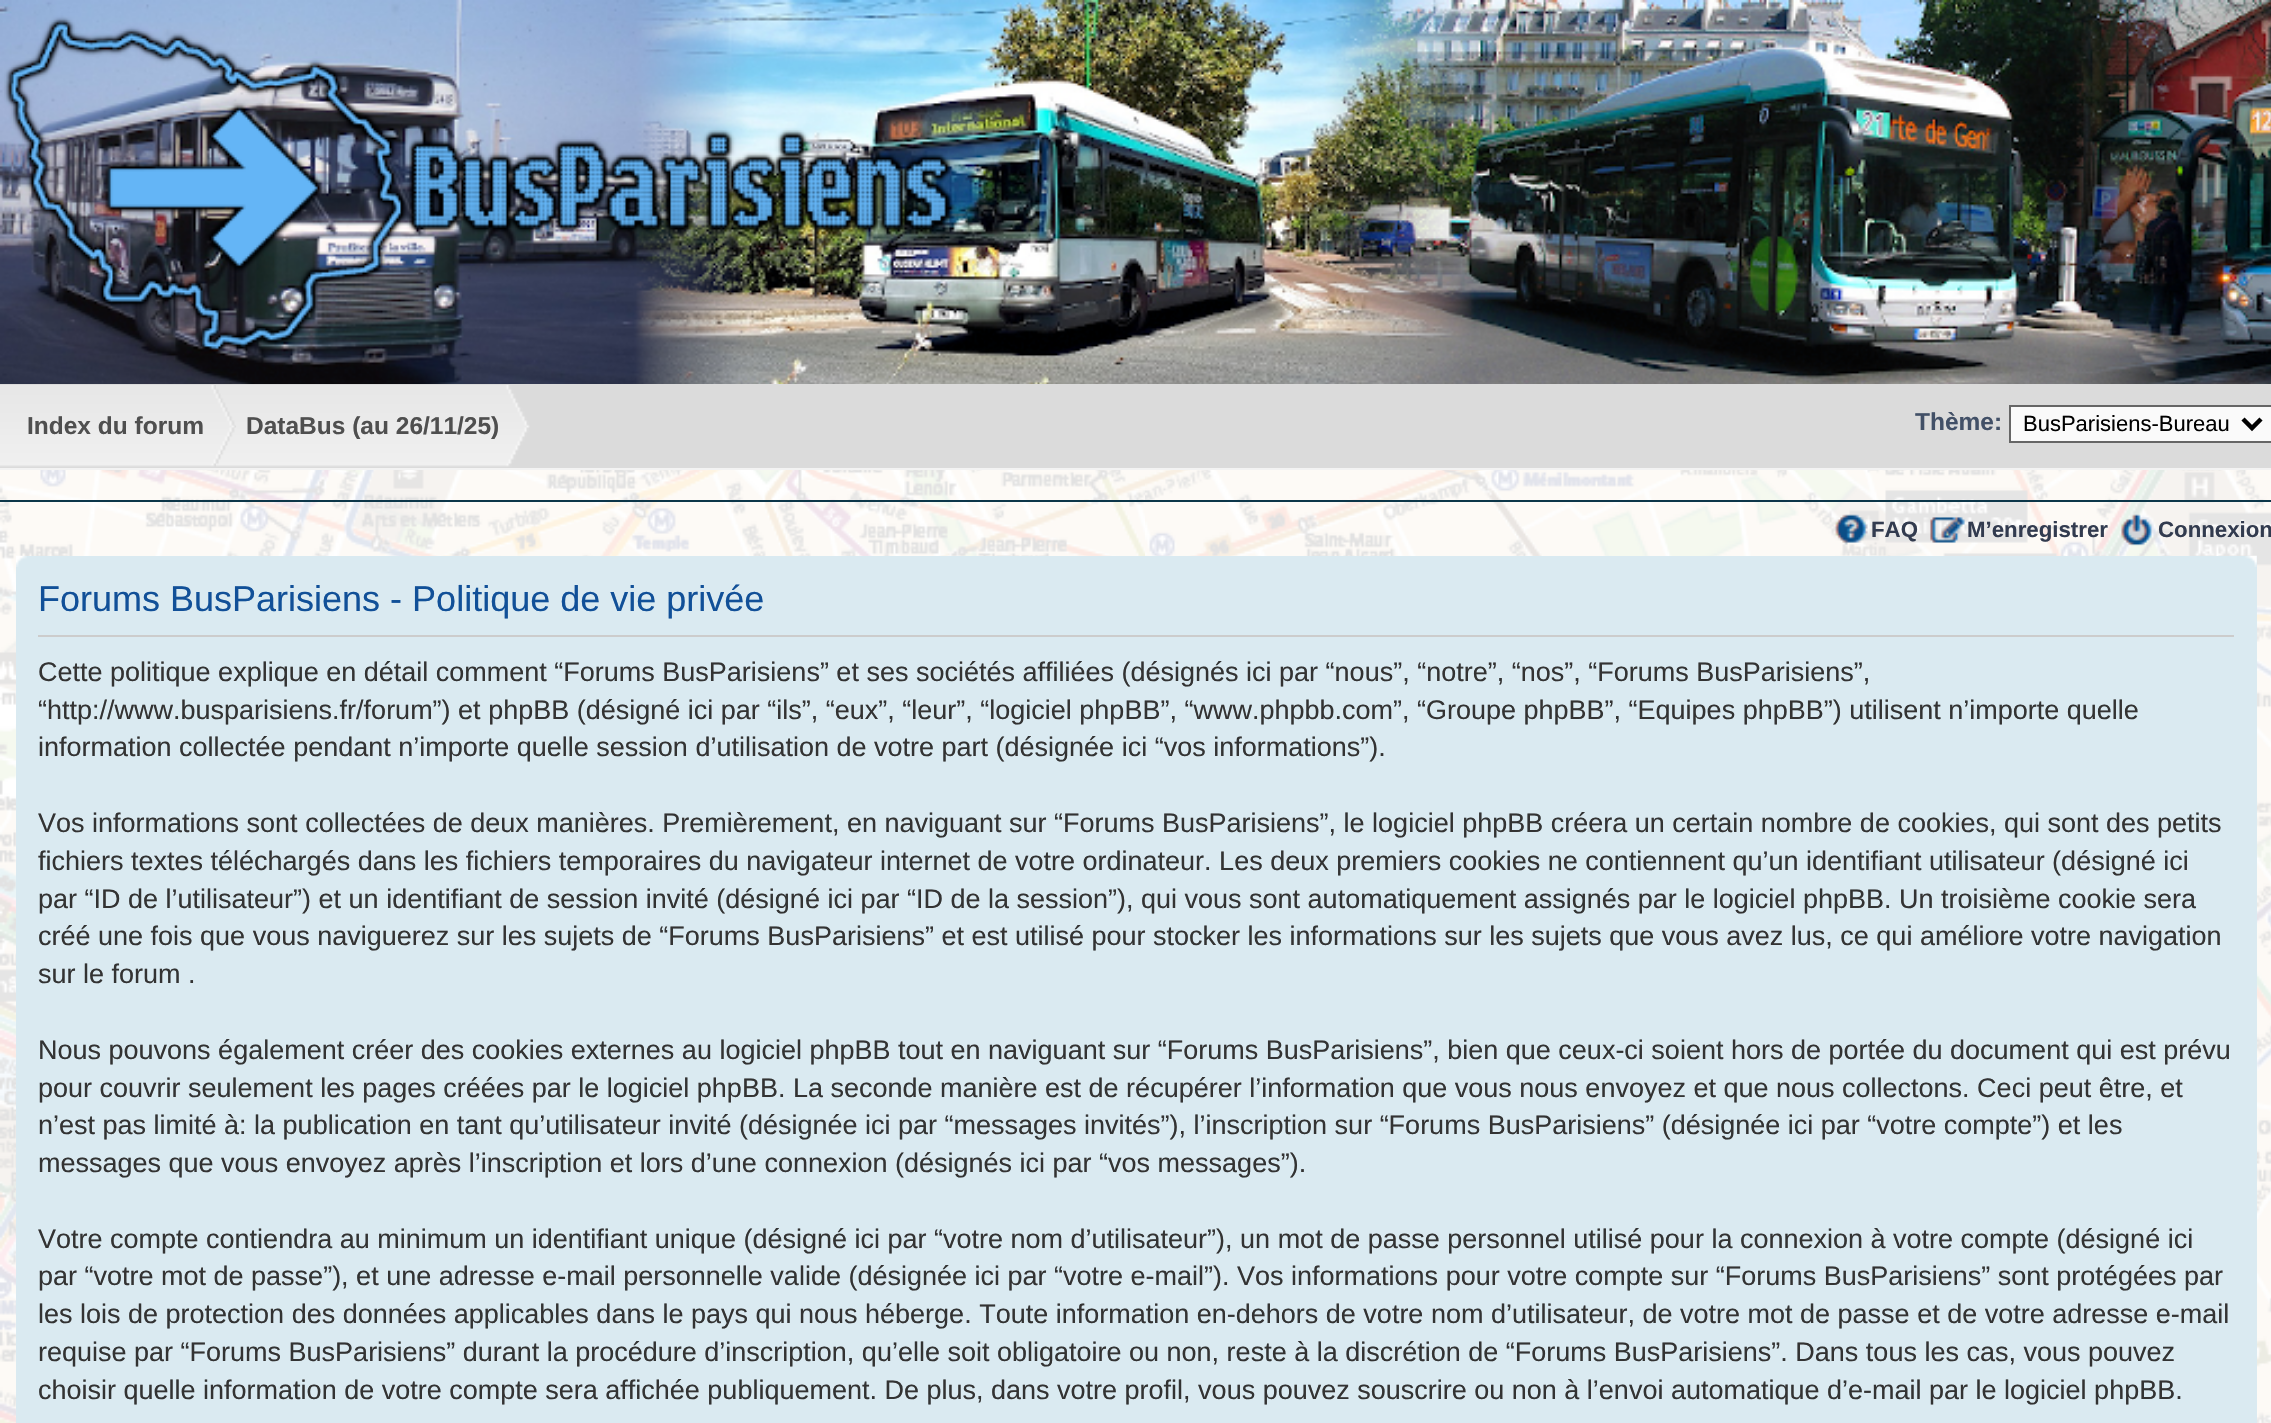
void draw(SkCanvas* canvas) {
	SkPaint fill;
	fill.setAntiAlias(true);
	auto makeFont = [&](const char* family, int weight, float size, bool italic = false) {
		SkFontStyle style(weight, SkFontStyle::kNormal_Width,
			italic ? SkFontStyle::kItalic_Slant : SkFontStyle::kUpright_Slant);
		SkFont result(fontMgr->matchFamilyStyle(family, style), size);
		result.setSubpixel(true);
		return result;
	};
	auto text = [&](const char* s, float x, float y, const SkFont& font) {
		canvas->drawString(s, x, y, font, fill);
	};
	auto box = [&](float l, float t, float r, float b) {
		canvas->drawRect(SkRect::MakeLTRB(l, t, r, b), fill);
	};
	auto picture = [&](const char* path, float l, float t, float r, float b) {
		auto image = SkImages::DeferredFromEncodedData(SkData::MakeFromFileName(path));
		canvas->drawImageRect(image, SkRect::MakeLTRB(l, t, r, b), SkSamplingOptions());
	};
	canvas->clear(0xFFFFFFFF);
	picture("image0.png", 0, 470, 2271, 1423);
	picture("image1.png", 0, 0, 2271, 384);
	fill.setColor(0xFFDBDBDB);
	box(0, 384, 2271, 468);
	fill.setColor(0xFFF3F3F3);
	box(0, 468, 2271, 470);
	fill.setColor(0xFF0C3649);
	box(0, 500, 2271, 502);
	picture("image2.png", 0, 385, 235, 467);
	picture("image3.png", 216, 385, 237, 467);
	picture("image4.png", 236, 385, 530, 467);
	fill.setColor(0xFFFAFAFA);
	canvas->drawRect(SkRect::MakeLTRB(2010, 406, 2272, 442), fill);
	fill.setStyle(SkPaint::kStroke_Style);
	fill.setStrokeWidth(2);
	fill.setColor(0xFF666666);
	canvas->drawRect(SkRect::MakeLTRB(2010, 406, 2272, 442), fill);
	fill.setStrokeWidth(4.5f);
	fill.setColor(0xFF000000);
	canvas->drawPath(SkPathBuilder().moveTo(2243, 419).lineTo(2252, 428).lineTo(2261, 419).detach(), fill);
	picture("image5.png", 1835, 514, 1868, 545);
	picture("image6.png", 1930, 517, 1965, 543);
	picture("image7.png", 2121, 514, 2152, 546);
	fill.setStyle(SkPaint::kFill_Style);
	fill.setColor(0xFFDAEAF1);
	box(16, 556, 2257, 1423);
	picture("image8.png", 16, 555, 27, 567);
	picture("image9.png", 2245, 555, 2257, 567);
	fill.setColor(0xFFCCCCCC);
	box(38, 635, 2234, 637);
	auto font1 = makeFont("Liberation Sans", 700, 24.5f);
	fill.setColor(0xFF4F4F4F);
	text("Index du forum", 27, 434, font1);
	text("DataBus (au 26/11/25)", 246, 434, font1);
	fill.setColor(0xFF425067);
	text("Thème:", 1915, 430, font1);
	auto font2 = makeFont("Liberation Sans", 400, 22);
	fill.setColor(0xFF000000);
	text("BusParisiens-Bureau", 2023, 431, font2);
	auto font3 = makeFont("Liberation Sans", 700, 22.25f);
	fill.setColor(0xFF323B4F);
	text("FAQ", 1871, 537, font3);
	text("M’enregistrer", 1967, 537, font3);
	text("Connexion", 2158, 537, font3);
	auto font4 = makeFont("Liberation Sans", 400, 36);
	fill.setColor(0xFF115098);
	text("Forums BusParisiens - Politique de vie privée", 38, 611, font4);
	auto font5 = makeFont("Liberation Sans", 400, 27);
	fill.setColor(0xFF333333);
	text("Cette politique explique en détail comment “Forums BusParisiens” et ses sociétés affiliées (désignés ici par “nous”, “notre”, “nos”, “Forums BusParisiens”,", 38, 681, font5);
	text("“http://www.busparisiens.fr/forum”) et phpBB (désigné ici par “ils”, “eux”, “leur”, “logiciel phpBB”, “www.phpbb.com”, “Groupe phpBB”, “Equipes phpBB”) utilisent n’importe quelle", 38, 719, font5);
	text("information collectée pendant n’importe quelle session d’utilisation de votre part (désignée ici “vos informations”).", 38, 756, font5);
	text("Vos informations sont collectées de deux manières. Premièrement, en naviguant sur “Forums BusParisiens”, le logiciel phpBB créera un certain nombre de cookies, qui sont des petits", 38, 832, font5);
	text("fichiers textes téléchargés dans les fichiers temporaires du navigateur internet de votre ordinateur. Les deux premiers cookies ne contiennent qu’un identifiant utilisateur (désigné ici", 38, 870, font5);
	text("par “ID de l’utilisateur”) et un identifiant de session invité (désigné ici par “ID de la session”), qui vous sont automatiquement assignés par le logiciel phpBB. Un troisième cookie sera", 38, 908, font5);
	text("créé une fois que vous naviguerez sur les sujets de “Forums BusParisiens” et est utilisé pour stocker les informations sur les sujets que vous avez lus, ce qui améliore votre navigation", 38, 945, font5);
	text("sur le forum .", 38, 983, font5);
	text("Nous pouvons également créer des cookies externes au logiciel phpBB tout en naviguant sur “Forums BusParisiens”, bien que ceux-ci soient hors de portée du document qui est prévu", 38, 1059, font5);
	text("pour couvrir seulement les pages créées par le logiciel phpBB. La seconde manière est de récupérer l’information que vous nous envoyez et que nous collectons. Ceci peut être, et", 38, 1097, font5);
	text("n’est pas limité à: la publication en tant qu’utilisateur invité (désignée ici par “messages invités”), l’inscription sur “Forums BusParisiens” (désignée ici par “votre compte”) et les", 38, 1134, font5);
	text("messages que vous envoyez après l’inscription et lors d’une connexion (désignés ici par “vos messages”).", 38, 1172, font5);
	text("Votre compte contiendra au minimum un identifiant unique (désigné ici par “votre nom d’utilisateur”), un mot de passe personnel utilisé pour la connexion à votre compte (désigné ici", 38, 1248, font5);
	text("par “votre mot de passe”), et une adresse e-mail personnelle valide (désignée ici par “votre e-mail”). Vos informations pour votre compte sur “Forums BusParisiens” sont protégées par", 38, 1285, font5);
	text("les lois de protection des données applicables dans le pays qui nous héberge. Toute information en-dehors de votre nom d’utilisateur, de votre mot de passe et de votre adresse e-mail", 38, 1323, font5);
	text("requise par “Forums BusParisiens” durant la procédure d’inscription, qu’elle soit obligatoire ou non, reste à la discrétion de “Forums BusParisiens”. Dans tous les cas, vous pouvez", 38, 1361, font5);
	text("choisir quelle information de votre compte sera affichée publiquement. De plus, dans votre profil, vous pouvez souscrire ou non à l’envoi automatique d’e-mail par le logiciel phpBB.", 38, 1399, font5);
}
